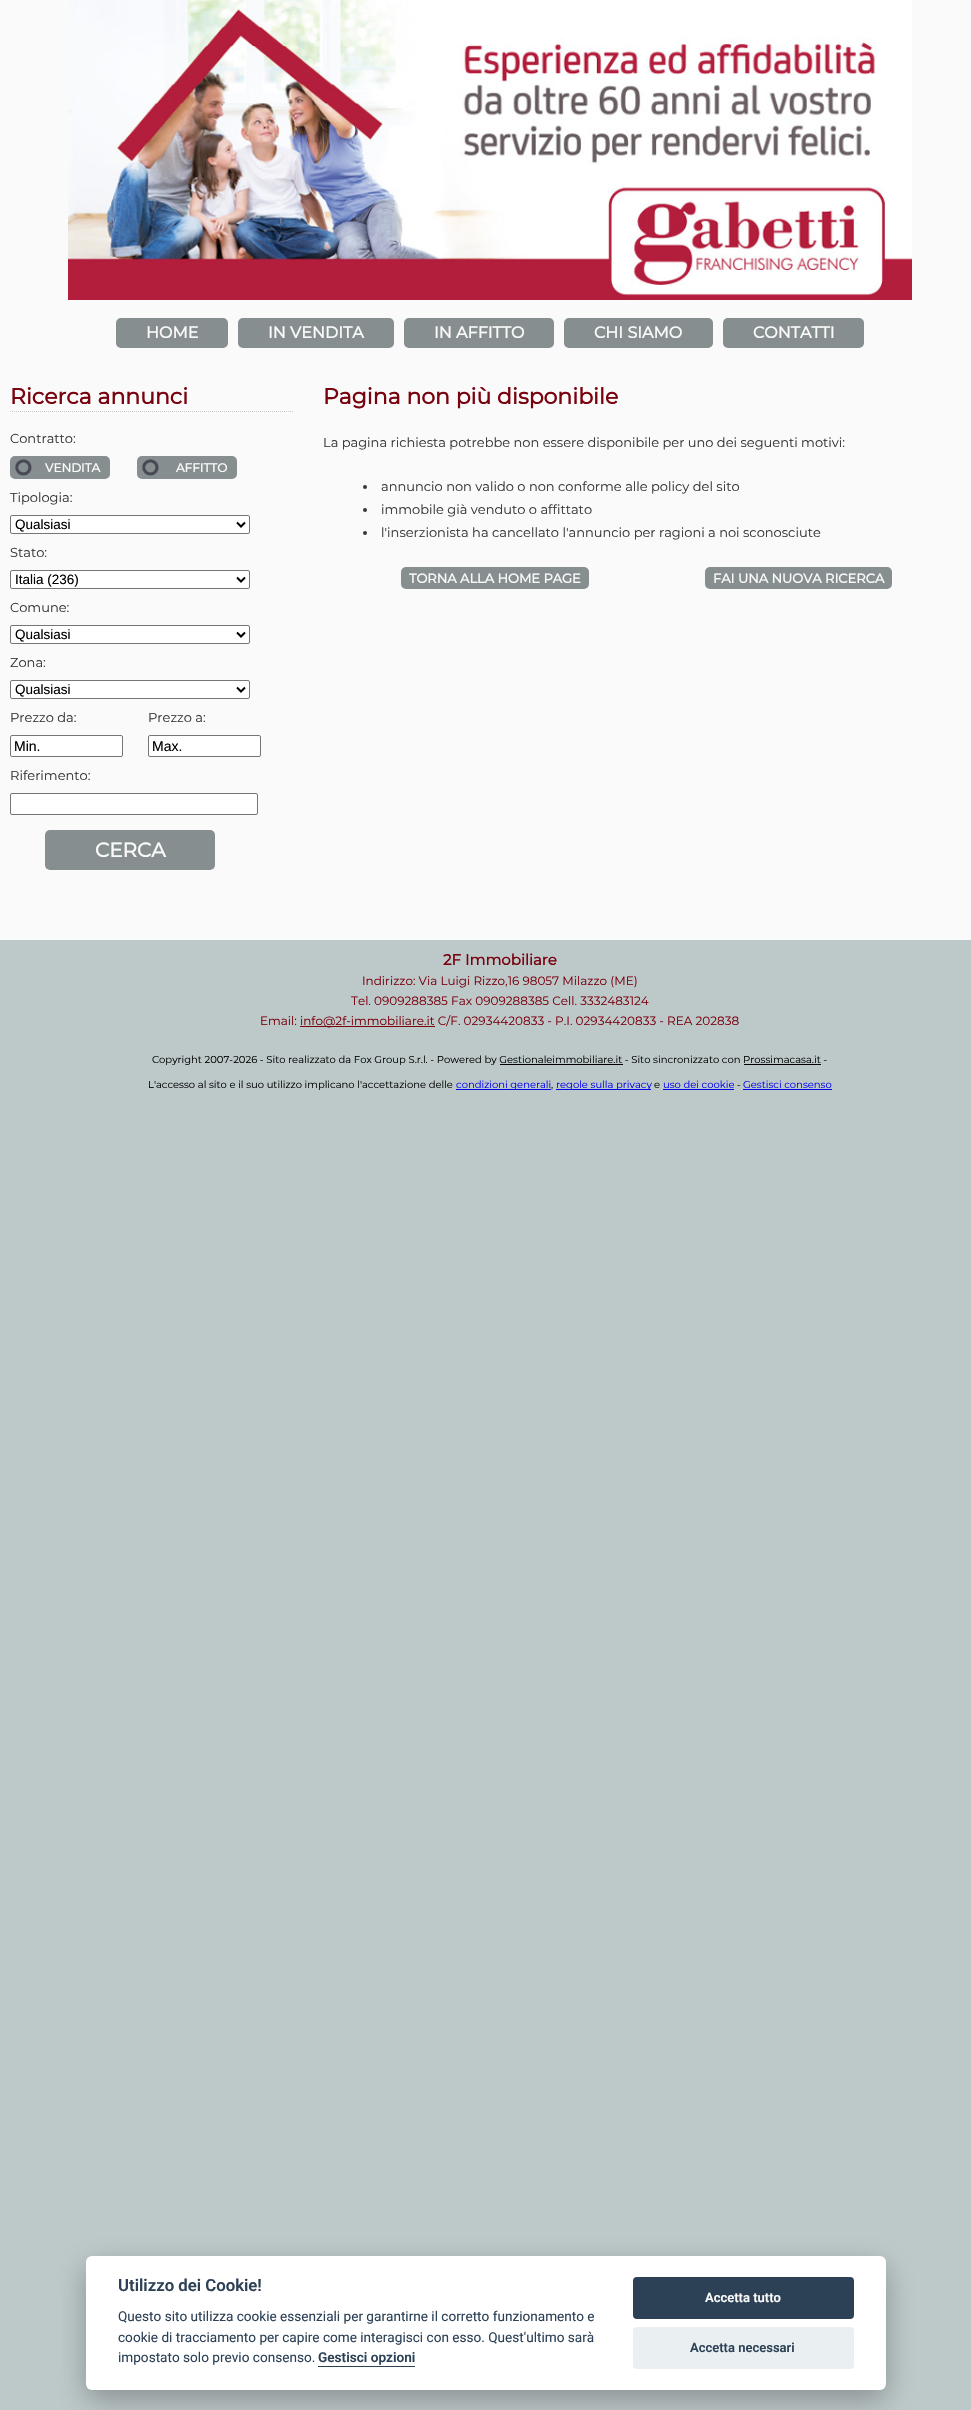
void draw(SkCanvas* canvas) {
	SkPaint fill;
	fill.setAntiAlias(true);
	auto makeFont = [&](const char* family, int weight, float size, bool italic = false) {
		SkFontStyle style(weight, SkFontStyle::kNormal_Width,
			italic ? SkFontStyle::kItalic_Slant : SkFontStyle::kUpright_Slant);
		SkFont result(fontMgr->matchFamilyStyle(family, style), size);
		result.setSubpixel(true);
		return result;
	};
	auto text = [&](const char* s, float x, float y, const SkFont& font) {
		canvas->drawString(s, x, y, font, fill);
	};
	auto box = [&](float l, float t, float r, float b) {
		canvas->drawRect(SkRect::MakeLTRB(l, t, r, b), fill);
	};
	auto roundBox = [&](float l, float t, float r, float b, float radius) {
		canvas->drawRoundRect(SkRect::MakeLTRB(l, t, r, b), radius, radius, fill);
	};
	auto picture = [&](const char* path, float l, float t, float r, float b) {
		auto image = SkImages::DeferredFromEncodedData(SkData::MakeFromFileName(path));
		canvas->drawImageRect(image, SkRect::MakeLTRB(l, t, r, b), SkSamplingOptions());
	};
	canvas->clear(0xFFBDC8C9);
	fill.setColor(0xFFFAFAFA);
	box(0, 0, 971, 940);
	picture("image0.png", 68, 0, 912, 300);
	fill.setColor(0xFF868E8F);
	roundBox(116, 318, 228, 348, 5);
	roundBox(238, 318, 394, 348, 5);
	roundBox(404, 318, 554, 348, 5);
	roundBox(564, 318, 713, 348, 5);
	roundBox(723, 318, 864, 348, 5);
	fill.setStyle(SkPaint::kStroke_Style);
	fill.setStrokeWidth(1);
	fill.setColor(0xFFCCCCCC);
	fill.setPathEffect(SkDashPathEffect::Make({{1, 1}}, 0));
	canvas->drawPath(SkPathBuilder().moveTo(10, 411.5f).lineTo(294, 411.5f).detach(), fill);
	fill.setPathEffect(nullptr);
	fill.setStyle(SkPaint::kFill_Style);
	fill.setColor(0xFF868E8F);
	roundBox(10, 456, 110, 479, 5);
	picture("image1.png", 15, 459, 32, 476);
	roundBox(137, 456, 237, 479, 5);
	picture("image1.png", 142, 459, 159, 476);
	fill.setColor(0xFFFFFFFF);
	canvas->drawRoundRect(SkRect::MakeLTRB(10.5f, 515.5f, 249.5f, 533.5f), 1.5f, 1.5f, fill);
	fill.setStyle(SkPaint::kStroke_Style);
	fill.setColor(0xFF767676);
	canvas->drawRoundRect(SkRect::MakeLTRB(10.5f, 515.5f, 249.5f, 533.5f), 1.5f, 1.5f, fill);
	fill.setStrokeWidth(2);
	fill.setColor(0xFF000000);
	canvas->drawPath(SkPathBuilder().moveTo(237, 522.5f).lineTo(241, 526.5f).lineTo(245, 522.5f).detach(), fill);
	fill.setStyle(SkPaint::kFill_Style);
	fill.setColor(0xFFFFFFFF);
	canvas->drawRoundRect(SkRect::MakeLTRB(10.5f, 570.5f, 249.5f, 588.5f), 1.5f, 1.5f, fill);
	fill.setStyle(SkPaint::kStroke_Style);
	fill.setStrokeWidth(1);
	fill.setColor(0xFF767676);
	canvas->drawRoundRect(SkRect::MakeLTRB(10.5f, 570.5f, 249.5f, 588.5f), 1.5f, 1.5f, fill);
	fill.setStrokeWidth(2);
	fill.setColor(0xFF000000);
	canvas->drawPath(SkPathBuilder().moveTo(237, 577.5f).lineTo(241, 581.5f).lineTo(245, 577.5f).detach(), fill);
	fill.setStyle(SkPaint::kFill_Style);
	fill.setColor(0xFFFFFFFF);
	canvas->drawRoundRect(SkRect::MakeLTRB(10.5f, 625.5f, 249.5f, 643.5f), 1.5f, 1.5f, fill);
	fill.setStyle(SkPaint::kStroke_Style);
	fill.setStrokeWidth(1);
	fill.setColor(0xFF767676);
	canvas->drawRoundRect(SkRect::MakeLTRB(10.5f, 625.5f, 249.5f, 643.5f), 1.5f, 1.5f, fill);
	fill.setStrokeWidth(2);
	fill.setColor(0xFF000000);
	canvas->drawPath(SkPathBuilder().moveTo(237, 632.5f).lineTo(241, 636.5f).lineTo(245, 632.5f).detach(), fill);
	fill.setStyle(SkPaint::kFill_Style);
	fill.setColor(0xFFFFFFFF);
	canvas->drawRoundRect(SkRect::MakeLTRB(10.5f, 680.5f, 249.5f, 698.5f), 1.5f, 1.5f, fill);
	fill.setStyle(SkPaint::kStroke_Style);
	fill.setStrokeWidth(1);
	fill.setColor(0xFF767676);
	canvas->drawRoundRect(SkRect::MakeLTRB(10.5f, 680.5f, 249.5f, 698.5f), 1.5f, 1.5f, fill);
	fill.setStrokeWidth(2);
	fill.setColor(0xFF000000);
	canvas->drawPath(SkPathBuilder().moveTo(237, 687.5f).lineTo(241, 691.5f).lineTo(245, 687.5f).detach(), fill);
	fill.setStyle(SkPaint::kFill_Style);
	fill.setColor(0xFFFFFFFF);
	canvas->drawRoundRect(SkRect::MakeLTRB(10.5f, 735.5f, 122.5f, 756.5f), 1.5f, 1.5f, fill);
	fill.setStyle(SkPaint::kStroke_Style);
	fill.setStrokeWidth(1);
	fill.setColor(0xFF767676);
	canvas->drawRoundRect(SkRect::MakeLTRB(10.5f, 735.5f, 122.5f, 756.5f), 1.5f, 1.5f, fill);
	fill.setStyle(SkPaint::kFill_Style);
	fill.setColor(0xFFFFFFFF);
	canvas->drawRoundRect(SkRect::MakeLTRB(148.5f, 735.5f, 260.5f, 756.5f), 1.5f, 1.5f, fill);
	fill.setStyle(SkPaint::kStroke_Style);
	fill.setColor(0xFF767676);
	canvas->drawRoundRect(SkRect::MakeLTRB(148.5f, 735.5f, 260.5f, 756.5f), 1.5f, 1.5f, fill);
	fill.setStyle(SkPaint::kFill_Style);
	fill.setColor(0xFFFFFFFF);
	canvas->drawRoundRect(SkRect::MakeLTRB(10.5f, 793.5f, 257.5f, 814.5f), 1.5f, 1.5f, fill);
	fill.setStyle(SkPaint::kStroke_Style);
	fill.setColor(0xFF767676);
	canvas->drawRoundRect(SkRect::MakeLTRB(10.5f, 793.5f, 257.5f, 814.5f), 1.5f, 1.5f, fill);
	fill.setStyle(SkPaint::kFill_Style);
	fill.setColor(0xFF868E8F);
	roundBox(45, 830, 215, 870, 5);
	fill.setColor(0xFF383838);
	canvas->drawCircle(365, 487, 2, fill);
	canvas->drawCircle(365, 510, 2, fill);
	canvas->drawCircle(365, 533, 2, fill);
	fill.setColor(0xFF868E8F);
	roundBox(401, 567, 589, 589, 5);
	roundBox(705, 567, 892, 589, 5);
	fill.setColor(0xFF78020E);
	box(300, 1026, 435, 1027);
	fill.setColor(0xFF000000);
	box(500, 1064, 623, 1065);
	box(744, 1064, 821, 1065);
	fill.setColor(0xFF0000EE);
	box(456, 1089, 551, 1090);
	box(556, 1089, 651, 1090);
	box(663, 1089, 734, 1090);
	box(743, 1089, 832, 1090);
	fill.setColor(0x47020203);
	fill.setMaskFilter(SkMaskFilter::MakeBlur(kNormal_SkBlurStyle, 15));
	canvas->drawRoundRect(SkRect::MakeLTRB(86, 2266, 886, 2400), 6, 6, fill);
	fill.setMaskFilter(nullptr);
	fill.setColor(0xFFFFFFFF);
	roundBox(86, 2256, 886, 2390, 6);
	fill.setColor(0xFF2D4156);
	box(318, 2366, 415, 2367);
	roundBox(633, 2277, 854, 2319, 4);
	fill.setColor(0xFFEAEFF2);
	roundBox(633, 2327, 854, 2369, 4);
	auto font1 = makeFont("Montserrat", 700, 16);
	fill.setColor(0xFFFAFAFA);
	text("HOME", 146, 338, font1);
	text("IN VENDITA", 268, 338, font1);
	text("IN AFFITTO", 434, 338, font1);
	text("CHI SIAMO", 594, 338, font1);
	text("CONTATTI", 753, 338, font1);
	auto font2 = makeFont("Montserrat", 700, 22);
	fill.setColor(0xFF78020E);
	text("Ricerca annunci", 10, 404, font2);
	auto font3 = makeFont("Montserrat", 100, 13);
	fill.setColor(0xFF383838);
	text("Contratto:", 10, 443, font3);
	auto font4 = makeFont("Montserrat", 700, 12);
	fill.setColor(0xFFFAFAFA);
	text("VENDITA", 45, 472, font4);
	text("AFFITTO", 176, 472, font4);
	fill.setColor(0xFF383838);
	text("Tipologia:", 10, 502, font3);
	auto font5 = makeFont("Liberation Sans", 400, 13.5f);
	fill.setColor(0xFF000000);
	text("Qualsiasi", 15, 529, font5);
	fill.setColor(0xFF383838);
	text("Stato:", 10, 557, font3);
	fill.setColor(0xFF000000);
	text("Italia (236)", 15, 584, font5);
	fill.setColor(0xFF383838);
	text("Comune:", 10, 612, font3);
	fill.setColor(0xFF000000);
	text("Qualsiasi", 15, 639, font5);
	fill.setColor(0xFF383838);
	text("Zona:", 10, 667, font3);
	fill.setColor(0xFF000000);
	text("Qualsiasi", 15, 694, font5);
	fill.setColor(0xFF383838);
	text("Prezzo da:", 10, 722, font3);
	auto font6 = makeFont("Liberation Sans", 400, 14);
	fill.setColor(0xFF000000);
	text("Min.", 14, 751, font6);
	fill.setColor(0xFF383838);
	text("Prezzo a:", 148, 722, font3);
	fill.setColor(0xFF000000);
	text("Max.", 152, 751, font6);
	fill.setColor(0xFF383838);
	text("Riferimento:", 10, 780, font3);
	auto font7 = makeFont("Montserrat", 700, 20);
	fill.setColor(0xFFFAFAFA);
	text("CERCA", 95, 857, font7);
	fill.setColor(0xFF78020E);
	text("Pagina non più disponibile", 323, 404, font2);
	fill.setColor(0xFF383838);
	text("La pagina richiesta potrebbe non essere disponibile per uno dei seguenti motivi:", 323, 447, font3);
	text("annuncio non valido o non conforme alle policy del sito", 381, 491, font3);
	text("immobile già venduto o affittato", 381, 514, font3);
	text("l'inserzionista ha cancellato l'annuncio per ragioni a noi sconosciute", 381, 537, font3);
	auto font8 = makeFont("Montserrat", 700, 13);
	fill.setColor(0xFFFAFAFA);
	text("TORNA ALLA HOME PAGE", 409, 583, font8);
	text("FAI UNA NUOVA RICERCA", 713, 583, font8);
	auto font9 = makeFont("Montserrat", 700, 15);
	fill.setColor(0xFF78020E);
	text("2F Immobiliare", 443, 965, font9);
	auto font10 = makeFont("Montserrat", 100, 12);
	text("Indirizzo: Via Luigi Rizzo,16 98057 Milazzo (ME)", 362, 985, font10);
	text("Tel. 0909288385 Fax 0909288385 Cell. 3332483124", 351, 1005, font10);
	text("Email:", 260, 1025, font10);
	text("info@2f-immobiliare.it C/F. 02934420833 - P.I. 02934420833 - REA 202838", 300, 1025, font10);
	auto font11 = makeFont("Montserrat", 100, 10);
	fill.setColor(0xFF000000);
	text("Copyright 2007-2026 - Sito realizzato da Fox Group S.r.l. - Powered by Gestionaleimmobiliare.it - Sito sincronizzato con Prossimacasa.it -", 152, 1063, font11);
	text("L'accesso al sito e il suo utilizzo implicano l'accettazione delle", 148, 1088, font11);
	fill.setColor(0xFF0000EE);
	text("condizioni generali", 456, 1088, font11);
	text("regole sulla privacy", 556, 1088, font11);
	fill.setColor(0xFF000000);
	text("e", 654, 1088, font11);
	fill.setColor(0xFF0000EE);
	text("uso dei cookie", 663, 1088, font11);
	fill.setColor(0xFF000000);
	text("-", 737, 1088, font11);
	fill.setColor(0xFF0000EE);
	text("Gestisci consenso", 743, 1088, font11);
	fill.setColor(0xFF000000);
	text(",", 551, 1088, font11);
	auto font12 = makeFont("Roboto", 600, 16.75f);
	fill.setColor(0xFF2D4156);
	text("Utilizzo dei Cookie!", 118, 2291, font12);
	auto font13 = makeFont("Roboto", 400, 13.6f);
	text("Questo sito utilizza cookie essenziali per garantirne il corretto funzionamento e", 118, 2321, font13);
	text("cookie di tracciamento per capire come interagisci con esso. Quest'ultimo sarà", 118, 2342, font13);
	text("impostato solo previo consenso.", 118, 2362, font13);
	auto font14 = makeFont("Roboto", 600, 13.6f);
	text("Gestisci opzioni", 318, 2362, font14);
	auto font15 = makeFont("Roboto", 600, 13);
	fill.setColor(0xFFFAFAFA);
	text("Accetta tutto", 705, 2302, font15);
	fill.setColor(0xFF2D4156);
	text("Accetta necessari", 690, 2352, font15);
}
